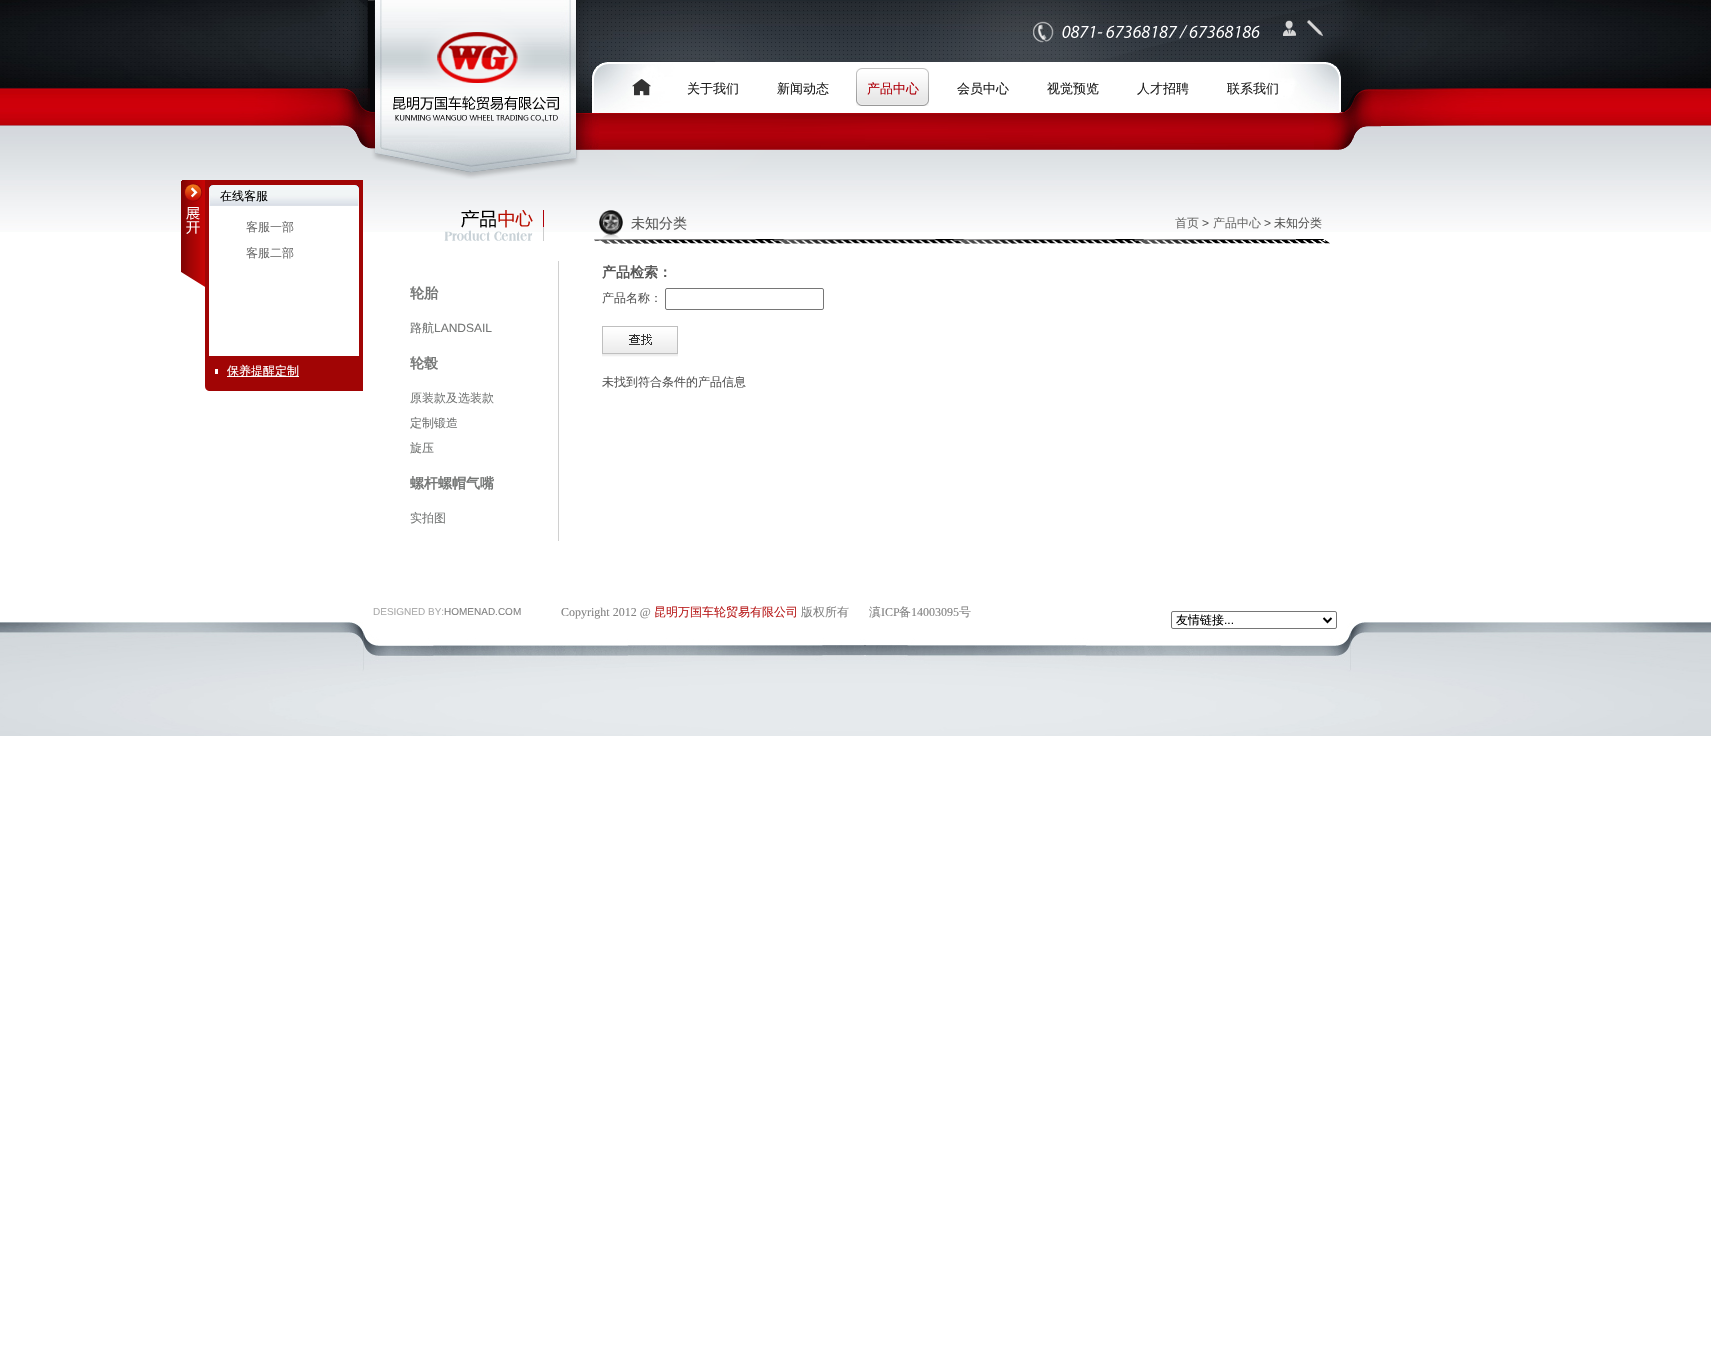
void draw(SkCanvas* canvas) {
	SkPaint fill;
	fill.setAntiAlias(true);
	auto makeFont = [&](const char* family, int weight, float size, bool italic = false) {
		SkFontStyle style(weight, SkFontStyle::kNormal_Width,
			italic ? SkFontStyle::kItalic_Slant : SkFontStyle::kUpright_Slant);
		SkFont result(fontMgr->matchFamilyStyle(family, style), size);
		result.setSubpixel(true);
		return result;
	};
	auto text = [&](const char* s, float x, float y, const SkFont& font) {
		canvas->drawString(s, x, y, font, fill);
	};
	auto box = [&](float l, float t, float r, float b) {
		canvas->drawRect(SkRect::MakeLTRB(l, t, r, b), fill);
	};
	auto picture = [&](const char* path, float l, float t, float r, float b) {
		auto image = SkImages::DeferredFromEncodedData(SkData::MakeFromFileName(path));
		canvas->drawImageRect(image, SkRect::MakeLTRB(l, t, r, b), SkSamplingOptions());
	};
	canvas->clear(0xFFFFFFFF);
	picture("image0.png", 0, 0, 1711, 232);
	picture("image1.png", 331, 0, 1381, 179);
	picture("image2.png", 1033, 21, 1260, 43);
	picture("image3.png", 1283, 20, 1296, 36);
	picture("image4.png", 1307, 20, 1323, 36);
	picture("image5.png", 632, 79, 651, 96);
	picture("image6.png", 856, 68, 929, 106);
	picture("image7.png", 181, 180, 205, 287);
	fill.setColor(0xFFA10505);
	box(205, 180, 363, 391);
	picture("image8.png", 209, 185, 359, 206);
	fill.setColor(0xFFFFFFFF);
	box(209, 206, 359, 356);
	fill.setColor(0xFFFFFEFF);
	box(215, 369, 218, 374);
	fill.setColor(0xFFFFFFFF);
	box(227, 376, 299, 377);
	picture("image9.png", 205, 386, 209, 391);
	picture("image10.png", 594, 239, 1330, 244);
	picture("image11.png", 599, 210, 623, 239);
	fill.setStyle(SkPaint::kStroke_Style);
	fill.setStrokeWidth(1);
	fill.setColor(0xFF767676);
	canvas->drawRoundRect(SkRect::MakeLTRB(665.5f, 288.5f, 823.5f, 309.5f), 1.5f, 1.5f, fill);
	picture("image12.png", 602, 326, 678, 357);
	picture("image13.png", 444, 210, 544, 241);
	fill.setStyle(SkPaint::kFill_Style);
	fill.setColor(0xFFD0D0D0);
	box(558, 261, 559, 541);
	picture("image14.png", 0, 622, 1711, 736);
	picture("image15.png", 346, 622, 1364, 670);
	fill.setStyle(SkPaint::kStroke_Style);
	fill.setColor(0xFF767676);
	canvas->drawRoundRect(SkRect::MakeLTRB(1171.5f, 611.5f, 1336.5f, 628.5f), 1.5f, 1.5f, fill);
	fill.setStrokeWidth(2);
	fill.setColor(0xFF000000);
	canvas->drawPath(SkPathBuilder().moveTo(1323.5f, 618).lineTo(1327.5f, 622).lineTo(1331.5f, 618).detach(), fill);
	auto font1 = makeFont("WenQuanYi Zen Hei", 500, 13);
	fill.setStyle(SkPaint::kFill_Style);
	fill.setColor(0xFF1E1E1E);
	text("关于我们", 687, 93, font1);
	text("新闻动态", 777, 93, font1);
	fill.setColor(0xFFAF000A);
	text("产品中心", 867, 93, font1);
	fill.setColor(0xFF1E1E1E);
	text("会员中心", 957, 93, font1);
	text("视觉预览", 1047, 93, font1);
	text("人才招聘", 1137, 93, font1);
	text("联系我们", 1227, 93, font1);
	auto font2 = makeFont("WenQuanYi Zen Hei", 500, 12);
	fill.setColor(0xFF000000);
	text("在线客服", 220, 200, font2);
	fill.setColor(0xFF6C6C6C);
	text("客服一部", 246, 231, font2);
	text("客服二部", 246, 257, font2);
	fill.setColor(0xFFFFFFFF);
	text("保养提醒定制", 227, 375, font2);
	auto font3 = makeFont("WenQuanYi Zen Hei", 500, 14);
	fill.setColor(0xFF575757);
	text("未知分类", 631, 228, font3);
	auto font4 = makeFont("WenQuanYi Zen Hei", 700, 14);
	text("产品检索：", 602, 277, font4);
	text("产品名称：", 602, 302, font2);
	text("未找到符合条件的产品信息", 602, 386, font2);
	fill.setColor(0xFF6C6C6C);
	text("首页", 1175, 227, font2);
	auto font5 = makeFont("Liberation Sans", 400, 12);
	fill.setColor(0xFF575757);
	text(">", 1202, 227, font5);
	fill.setColor(0xFF6C6C6C);
	text("产品中心", 1213, 227, font2);
	fill.setColor(0xFF575757);
	text(">", 1264, 227, font5);
	text("未知分类", 1274, 227, font2);
	fill.setColor(0xFF757776);
	text("轮胎", 410, 298, font4);
	text("路航", 410, 332, font2);
	text("LANDSAIL", 434, 332, font5);
	text("轮毂", 410, 368, font4);
	text("原装款及选装款", 410, 402, font2);
	text("定制锻造", 410, 427, font2);
	text("旋压", 410, 452, font2);
	text("螺杆螺帽气嘴", 410, 488, font4);
	text("实拍图", 410, 522, font2);
	auto font6 = makeFont("Liberation Sans", 400, 10);
	fill.setColor(0xFFABABAB);
	text("DESIGNED BY:", 373, 615, font6);
	fill.setColor(0xFF838383);
	text("HOMENAD.COM", 444, 615, font6);
	auto font7 = makeFont("Liberation Serif", 400, 12);
	text("Copyright 2012 @", 561, 616, font7);
	fill.setColor(0xFFB91D1D);
	text("昆明万国车轮贸易有限公司", 654, 616, font2);
	fill.setColor(0xFF838383);
	text("版权所有", 801, 616, font2);
	text("滇", 869, 616, font2);
	text("ICP", 881, 616, font7);
	text("备", 899, 616, font2);
	text("14003095", 911, 616, font7);
	text("号", 959, 616, font2);
	fill.setColor(0xFF000000);
	text("友情链接", 1176, 624, font2);
	text("...", 1224, 624, font5);
}
